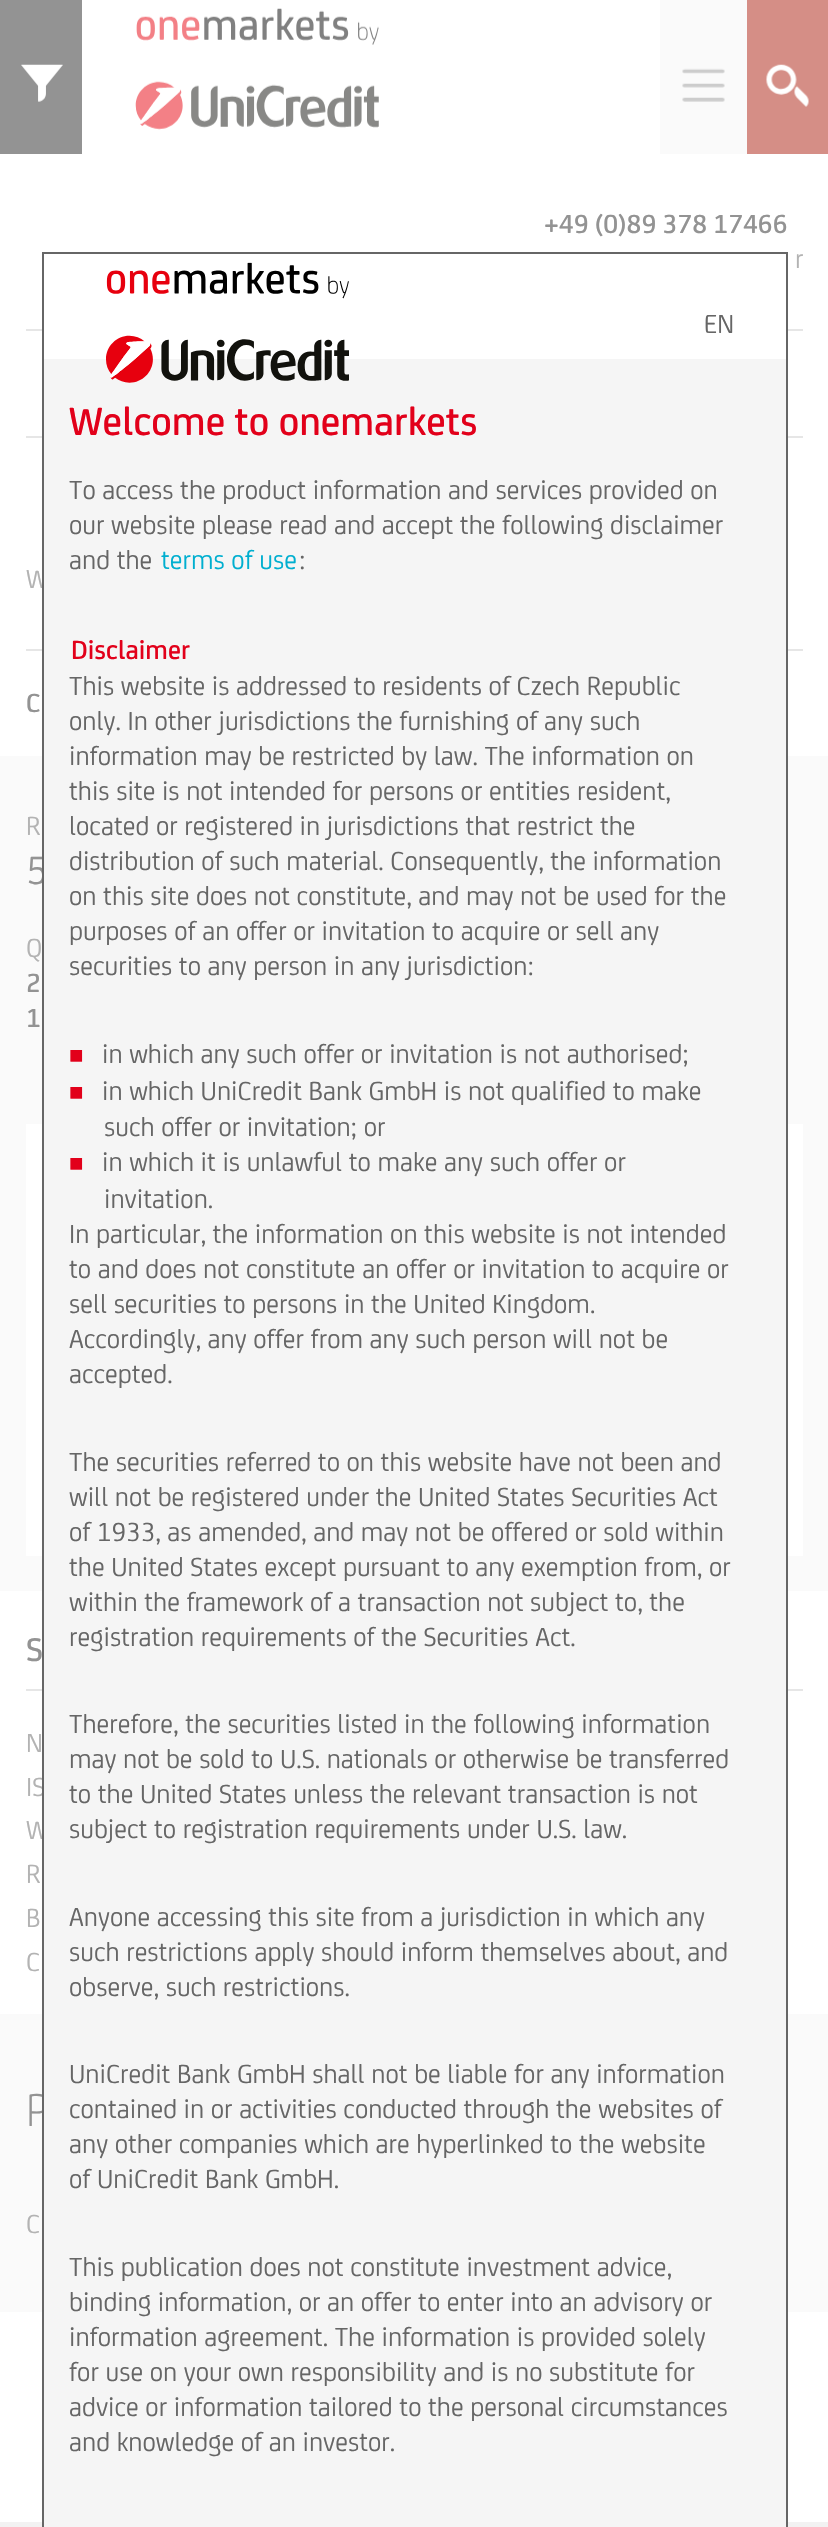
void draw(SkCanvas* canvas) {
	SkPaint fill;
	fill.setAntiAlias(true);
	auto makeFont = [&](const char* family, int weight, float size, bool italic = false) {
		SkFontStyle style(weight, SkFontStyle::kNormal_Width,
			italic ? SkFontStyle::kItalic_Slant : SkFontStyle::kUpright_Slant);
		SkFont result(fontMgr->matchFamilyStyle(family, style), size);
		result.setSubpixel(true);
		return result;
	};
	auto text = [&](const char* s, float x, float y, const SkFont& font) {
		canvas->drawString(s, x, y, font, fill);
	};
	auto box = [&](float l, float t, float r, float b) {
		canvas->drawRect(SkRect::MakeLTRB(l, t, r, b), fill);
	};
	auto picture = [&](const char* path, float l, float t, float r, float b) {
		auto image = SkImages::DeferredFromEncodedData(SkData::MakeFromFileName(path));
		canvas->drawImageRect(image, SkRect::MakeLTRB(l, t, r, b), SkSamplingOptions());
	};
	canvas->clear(0xFFFFFFFF);
	fill.setColor(0xFF939393);
	box(0, 0, 82, 154);
	picture("image0.png", 21, 64, 63, 102);
	picture("image1.png", 135, 8, 379, 130);
	fill.setColor(0xFFFAFAFA);
	box(660, 0, 747, 154);
	picture("image2.png", 682, 68, 725, 102);
	fill.setColor(0xFFD58E86);
	box(747, 0, 828, 154);
	picture("image3.png", 766, 64, 809, 107);
	fill.setColor(0xFFE6E6E6);
	box(26, 329, 803, 331);
	box(26, 436, 803, 438);
	box(26, 649, 803, 651);
	fill.setColor(0xFFFAFAFA);
	box(0, 756, 828, 1591);
	fill.setColor(0xFFFFFFFF);
	box(26, 1124, 803, 1556);
	fill.setColor(0xFFE6E6E6);
	box(26, 1689, 803, 1691);
	fill.setColor(0xFFFAFAFA);
	box(0, 2014, 828, 2312);
	fill.setColor(0xFFF2F2F2);
	box(0, 2522, 828, 2527);
	auto font1 = makeFont("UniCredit", 500, 28);
	fill.setColor(0xFF939393);
	text("+49 (0)89 378 17466", 544, 233, font1);
	auto font2 = makeFont("UniCredit", 400, 28);
	fill.setColor(0xFFB3B3B3);
	text("r", 795, 268, font2);
	text("W", 26, 588, font2);
	fill.setColor(0xFF939393);
	text("C", 26, 712, font1);
	fill.setColor(0xFFB3B3B3);
	text("R", 26, 835, font2);
	auto font3 = makeFont("UniCredit", 400, 42);
	fill.setColor(0xFF939393);
	text("5", 26, 884, font3);
	fill.setColor(0xFFB3B3B3);
	text("Q", 26, 957, font2);
	fill.setColor(0xFF939393);
	text("2", 26, 992, font1);
	text("1", 26, 1027, font1);
	auto font4 = makeFont("UniCredit", 500, 35);
	text("S", 26, 1661, font4);
	fill.setColor(0xFFB3B3B3);
	text("N", 26, 1752, font2);
	text("IS", 26, 1796, font2);
	text("W", 26, 1839, font2);
	text("R", 26, 1883, font2);
	text("B", 26, 1927, font2);
	text("C", 26, 1971, font2);
	auto font5 = makeFont("UniCredit", 300, 49);
	fill.setColor(0xFF939393);
	text("P", 26, 2126, font5);
	fill.setColor(0xFFB3B3B3);
	text("C", 26, 2233, font2);
	fill.setColor(0xFFF5F5F5);
	box(44, 359, 786, 2527);
	fill.setStyle(SkPaint::kStroke_Style);
	fill.setStrokeWidth(2);
	fill.setColor(0xFF666666);
	canvas->drawRect(SkRect::MakeLTRB(43, 253, 787, 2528), fill);
	fill.setStyle(SkPaint::kFill_Style);
	fill.setColor(0xFFFFFFFF);
	box(44, 329, 786, 331);
	picture("image4.png", 106, 262, 349, 383);
	fill.setColor(0xFF666666);
	text("EN", 704, 333, font2);
	auto font6 = makeFont("UniCredit", 500, 42);
	fill.setColor(0xFFE2001A);
	text("Welcome to onemarkets", 69, 435, font6);
	fill.setColor(0xFF666666);
	text("To access the product information and services provided on", 69, 499, font2);
	text("our website please read and accept the following disclaimer", 69, 534, font2);
	text("and the", 69, 569, font2);
	fill.setColor(0xFF00AFD0);
	text("terms of use", 161, 569, font2);
	fill.setColor(0xFF666666);
	text(":", 299, 569, font2);
	fill.setColor(0xFFE2001A);
	text("Disclaimer", 71, 659, font1);
	fill.setColor(0xFF666666);
	text("This website is addressed to residents of Czech Republic", 69, 695, font2);
	text("only. In other jurisdictions the furnishing of any such", 69, 730, font2);
	text("information may be restricted by law. The information on", 69, 765, font2);
	text("this site is not intended for persons or entities resident,", 69, 800, font2);
	text("located or registered in jurisdictions that restrict the", 69, 835, font2);
	text("distribution of such material. Consequently, the information", 69, 870, font2);
	text("on this site does not constitute, and may not be used for the", 69, 905, font2);
	text("purposes of an offer or invitation to acquire or sell any", 69, 940, font2);
	text("securities to any person in any jurisdiction:", 69, 975, font2);
	auto font7 = makeFont("Liberation Sans", 400, 24);
	fill.setColor(0xFFE2001A);
	text("■", 69, 1063, font7);
	fill.setColor(0xFF666666);
	text("in which any such offer or invitation is not authorised;", 102, 1063, font2);
	fill.setColor(0xFFE2001A);
	text("■", 69, 1100, font7);
	fill.setColor(0xFF666666);
	text("in which UniCredit Bank GmbH is not qualified to make", 102, 1100, font2);
	text("such offer or invitation; or", 104, 1136, font2);
	fill.setColor(0xFFE2001A);
	text("■", 69, 1171, font7);
	fill.setColor(0xFF666666);
	text("in which it is unlawful to make any such offer or", 102, 1171, font2);
	text("invitation.", 104, 1208, font2);
	text("In particular, the information on this website is not intended", 69, 1243, font2);
	text("to and does not constitute an offer or invitation to acquire or", 69, 1278, font2);
	text("sell securities to persons in the United Kingdom.", 69, 1313, font2);
	text("Accordingly, any offer from any such person will not be", 69, 1348, font2);
	text("accepted.", 69, 1383, font2);
	text("The securities referred to on this website have not been and", 69, 1471, font2);
	text("will not be registered under the United States Securities Act", 69, 1506, font2);
	text("of 1933, as amended, and may not be offered or sold within", 69, 1541, font2);
	text("the United States except pursuant to any exemption from, or", 69, 1576, font2);
	text("within the framework of a transaction not subject to, the", 69, 1611, font2);
	text("registration requirements of the Securities Act.", 69, 1646, font2);
	text("Therefore, the securities listed in the following information", 69, 1733, font2);
	text("may not be sold to U.S. nationals or otherwise be transferred", 69, 1768, font2);
	text("to the United States unless the relevant transaction is not", 69, 1803, font2);
	text("subject to registration requirements under U.S. law.", 69, 1838, font2);
	text("Anyone accessing this site from a jurisdiction in which any", 69, 1926, font2);
	text("such restrictions apply should inform themselves about, and", 69, 1961, font2);
	text("observe, such restrictions.", 69, 1996, font2);
	text("UniCredit Bank GmbH shall not be liable for any information", 69, 2083, font2);
	text("contained in or activities conducted through the websites of", 69, 2118, font2);
	text("any other companies which are hyperlinked to the website", 69, 2153, font2);
	text("of UniCredit Bank GmbH.", 69, 2188, font2);
	text("This publication does not constitute investment advice,", 69, 2276, font2);
	text("binding information, or an offer to enter into an advisory or", 69, 2311, font2);
	text("information agreement. The information is provided solely", 69, 2346, font2);
	text("for use on your own responsibility and is no substitute for", 69, 2381, font2);
	text("advice or information tailored to the personal circumstances", 69, 2416, font2);
	text("and knowledge of an investor.", 69, 2451, font2);
}
